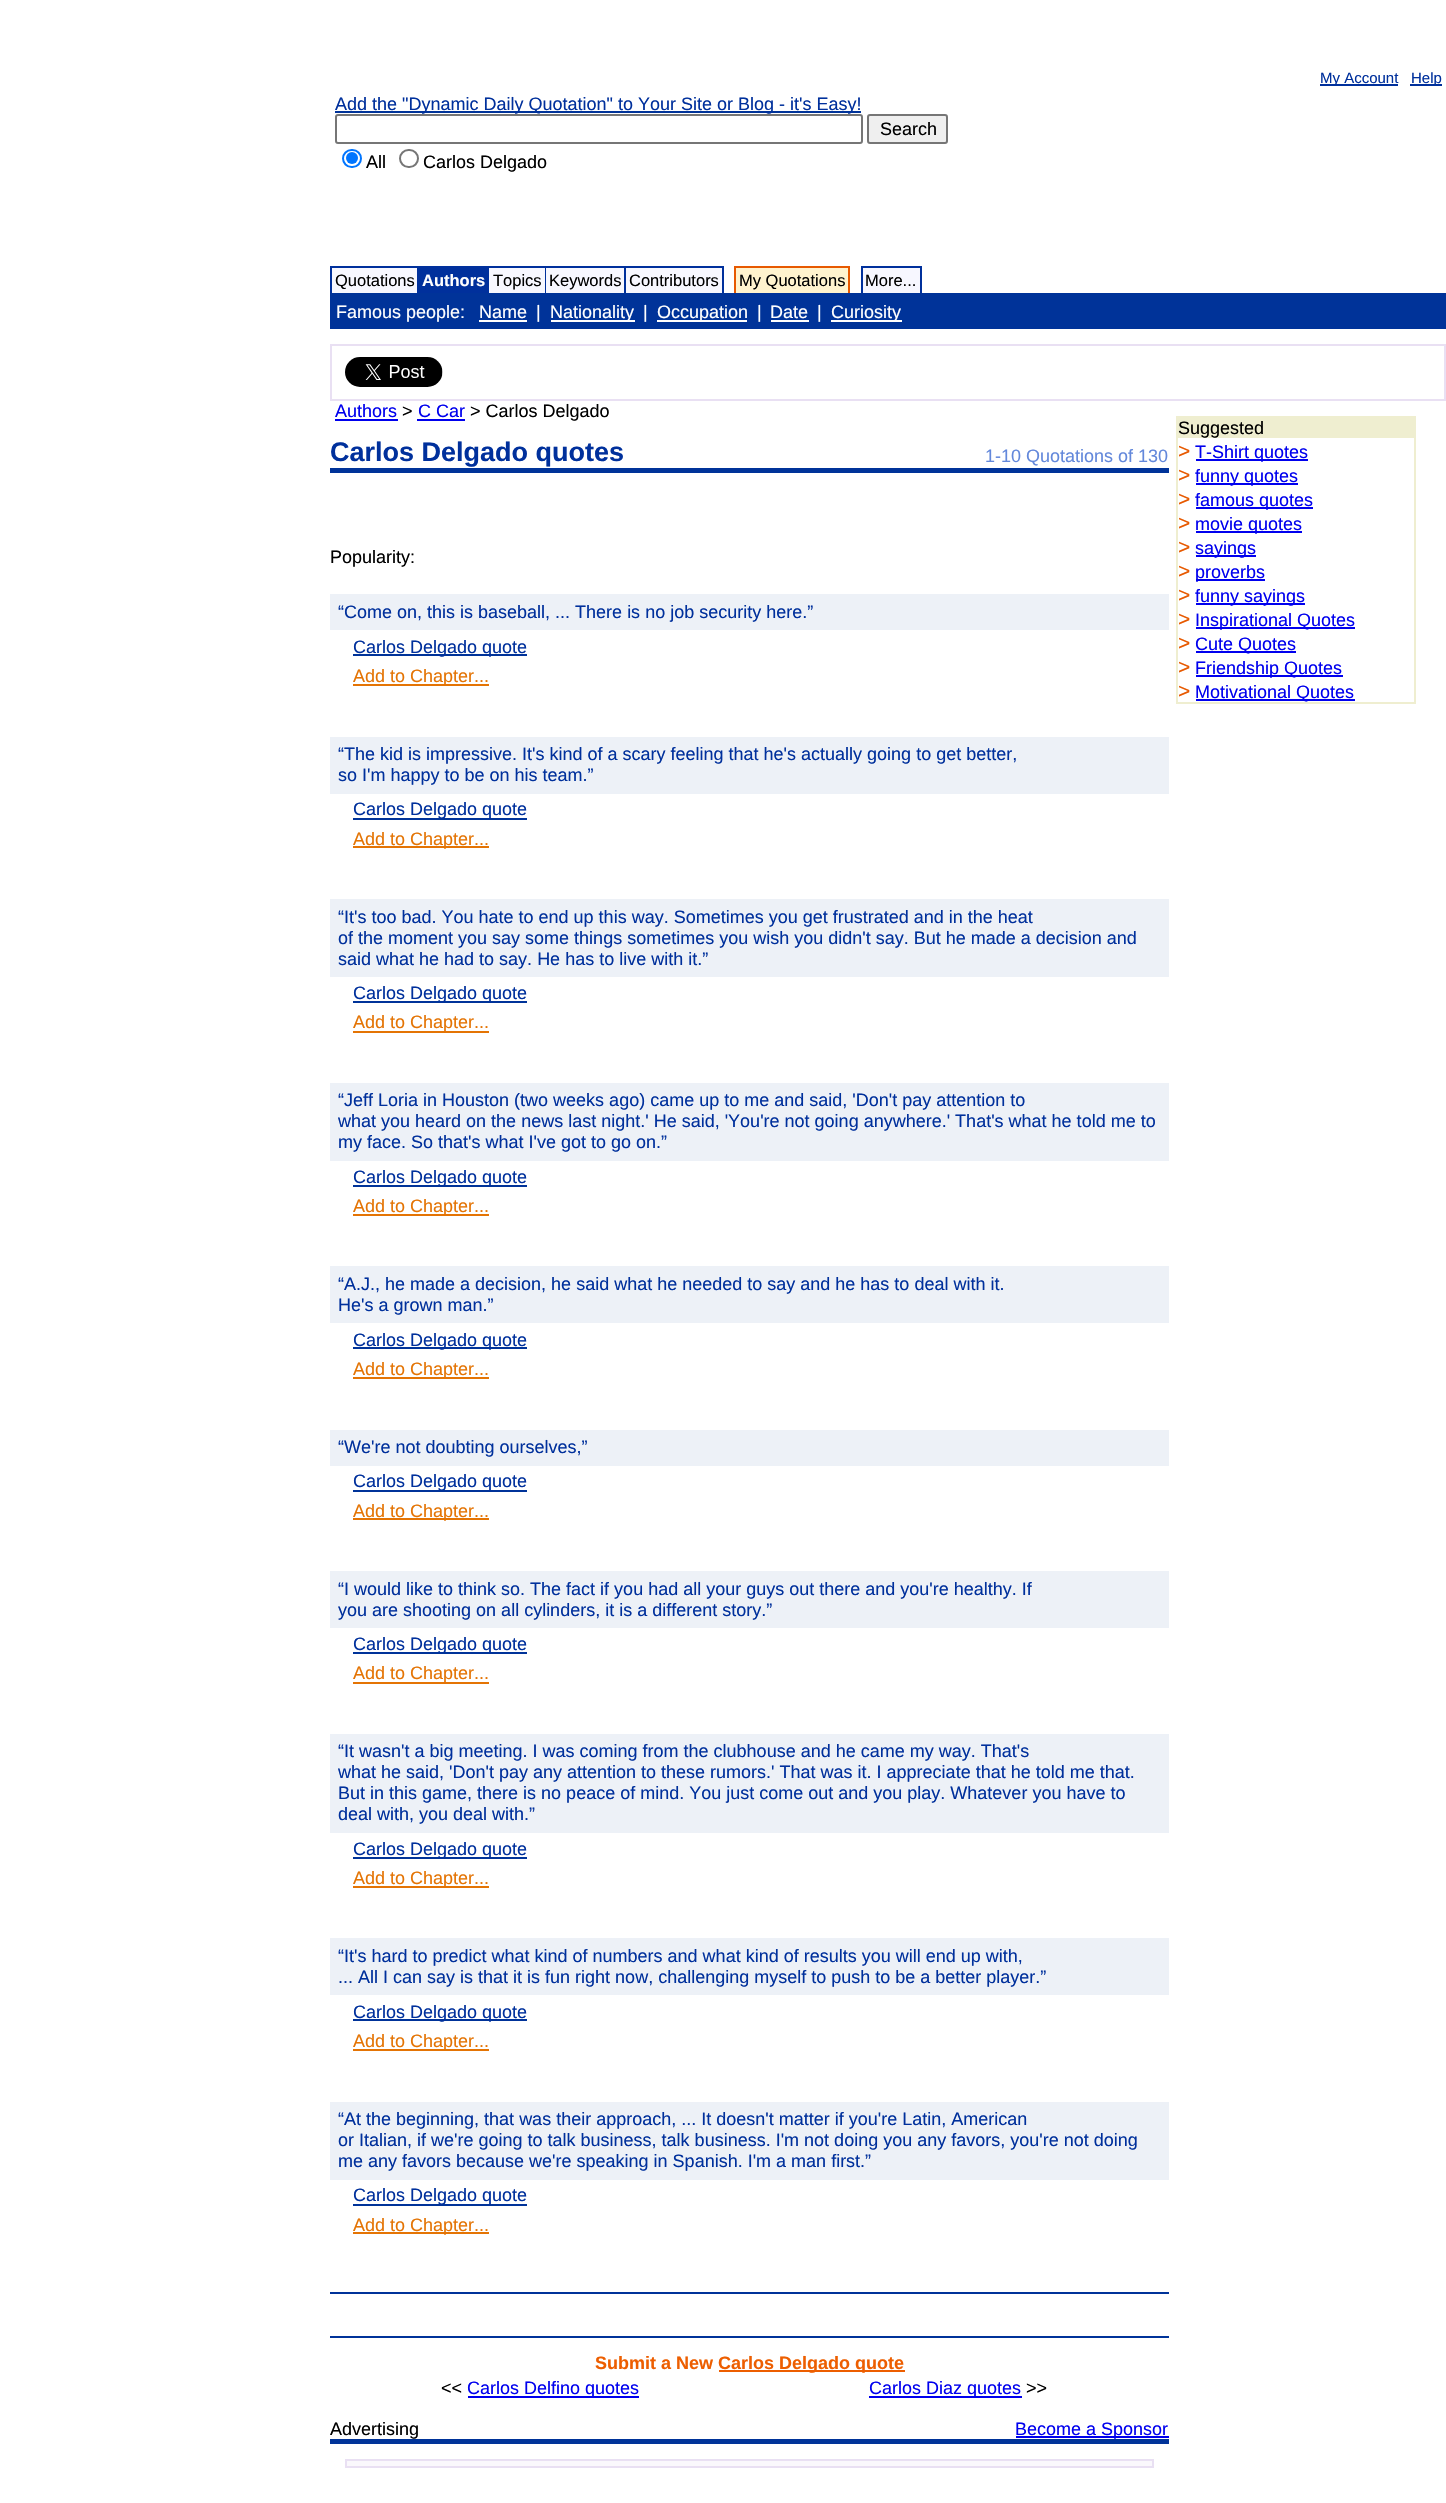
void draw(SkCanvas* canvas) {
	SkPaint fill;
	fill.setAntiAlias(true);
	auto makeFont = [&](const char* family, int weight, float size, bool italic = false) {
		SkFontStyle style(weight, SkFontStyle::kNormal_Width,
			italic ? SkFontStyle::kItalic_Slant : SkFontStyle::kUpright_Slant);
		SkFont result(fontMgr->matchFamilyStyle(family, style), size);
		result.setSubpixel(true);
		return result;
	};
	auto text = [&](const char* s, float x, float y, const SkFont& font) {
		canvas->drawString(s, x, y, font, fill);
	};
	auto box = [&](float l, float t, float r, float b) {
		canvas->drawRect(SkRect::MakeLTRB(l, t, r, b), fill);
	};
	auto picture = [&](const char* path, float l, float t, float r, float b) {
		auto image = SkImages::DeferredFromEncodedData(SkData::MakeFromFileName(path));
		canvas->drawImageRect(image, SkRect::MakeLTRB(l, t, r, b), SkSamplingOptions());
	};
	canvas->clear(0xFFFFFFFF);
	fill.setColor(0xFF00309C);
	box(1320, 84, 1398, 86);
	box(1410, 84, 1442, 86);
	fill.setColor(0xFF003399);
	box(335, 111, 861, 113);
	fill.setStyle(SkPaint::kStroke_Style);
	fill.setStrokeWidth(2);
	fill.setColor(0xFF767676);
	canvas->drawRoundRect(SkRect::MakeLTRB(336, 115, 862, 143), 2, 2, fill);
	fill.setStyle(SkPaint::kFill_Style);
	fill.setColor(0xFFEFEFEF);
	canvas->drawRoundRect(SkRect::MakeLTRB(868, 115, 947, 143), 2, 2, fill);
	fill.setStyle(SkPaint::kStroke_Style);
	fill.setColor(0xFF767676);
	canvas->drawRoundRect(SkRect::MakeLTRB(868, 115, 947, 143), 2, 2, fill);
	fill.setColor(0xFF0075FF);
	canvas->drawRoundRect(SkRect::MakeLTRB(343, 150, 361, 167), 8.5f, 8.5f, fill);
	fill.setStyle(SkPaint::kFill_Style);
	canvas->drawCircle(352, 158, 6, fill);
	fill.setStyle(SkPaint::kStroke_Style);
	fill.setColor(0xFF767676);
	canvas->drawRoundRect(SkRect::MakeLTRB(400, 150, 418, 167), 8.5f, 8.5f, fill);
	fill.setStyle(SkPaint::kFill_Style);
	fill.setColor(0xFF003399);
	box(330, 293, 1446, 329);
	fill.setColor(0xFFF7F7FF);
	box(332, 268, 417, 293);
	fill.setColor(0xFF00309C);
	box(330, 266, 419, 268);
	box(417, 266, 489, 293);
	box(330, 266, 332, 293);
	fill.setColor(0xFFF7F7FF);
	box(489, 268, 545, 293);
	fill.setColor(0xFF00309C);
	box(489, 266, 723, 268);
	box(545, 266, 546, 293);
	fill.setColor(0xFFF7F7FF);
	box(546, 268, 624, 293);
	fill.setColor(0xFF00309C);
	box(624, 266, 626, 293);
	fill.setColor(0xFFF7F7FF);
	box(626, 268, 722, 293);
	fill.setColor(0xFF00309C);
	box(722, 266, 724, 293);
	fill.setColor(0xFFFFF3CE);
	box(736, 268, 848, 293);
	fill.setColor(0xFFE75900);
	box(734, 266, 849, 268);
	box(848, 266, 850, 293);
	box(734, 266, 736, 293);
	fill.setColor(0xFFF7F7FF);
	box(863, 268, 920, 293);
	fill.setColor(0xFF00309C);
	box(861, 266, 921, 268);
	box(920, 266, 922, 293);
	box(861, 266, 863, 293);
	fill.setColor(0xFFFFFFFF);
	box(479, 320, 527, 322);
	box(551, 320, 635, 322);
	box(657, 320, 747, 322);
	box(771, 320, 809, 322);
	box(831, 320, 902, 322);
	fill.setStyle(SkPaint::kStroke_Style);
	fill.setColor(0xFFE9E0F3);
	canvas->drawRect(SkRect::MakeLTRB(331, 345, 1445, 400), fill);
	picture("image0.png", 345, 357, 443, 387);
	fill.setStyle(SkPaint::kFill_Style);
	fill.setColor(0xFF0000EE);
	box(335, 419, 398, 421);
	box(417, 419, 465, 421);
	fill.setColor(0xFF003399);
	box(330, 468, 1169, 473);
	fill.setColor(0xFFEDF1F7);
	box(330, 594, 1169, 630);
	fill.setColor(0xFF003399);
	box(353, 654, 527, 656);
	fill.setColor(0xFFE47404);
	box(353, 684, 489, 686);
	fill.setColor(0xFFEDF1F7);
	box(330, 737, 1169, 794);
	fill.setColor(0xFF003399);
	box(353, 818, 527, 820);
	fill.setColor(0xFFE47404);
	box(353, 846, 489, 848);
	fill.setColor(0xFFEDF1F7);
	box(330, 899, 1169, 977);
	fill.setColor(0xFF003399);
	box(353, 1001, 527, 1003);
	fill.setColor(0xFFE47404);
	box(353, 1031, 489, 1033);
	fill.setColor(0xFFEDF1F7);
	box(330, 1083, 1169, 1161);
	fill.setColor(0xFF003399);
	box(353, 1185, 527, 1187);
	fill.setColor(0xFFE47404);
	box(353, 1214, 489, 1216);
	fill.setColor(0xFFEDF1F7);
	box(330, 1266, 1169, 1323);
	fill.setColor(0xFF003399);
	box(353, 1347, 527, 1349);
	fill.setColor(0xFFE47404);
	box(353, 1377, 489, 1379);
	fill.setColor(0xFFEDF1F7);
	box(330, 1430, 1169, 1466);
	fill.setColor(0xFF003399);
	box(353, 1490, 527, 1492);
	fill.setColor(0xFFE47404);
	box(353, 1518, 489, 1520);
	fill.setColor(0xFFEDF1F7);
	box(330, 1571, 1169, 1628);
	fill.setColor(0xFF003399);
	box(353, 1652, 527, 1654);
	fill.setColor(0xFFE47404);
	box(353, 1682, 489, 1684);
	fill.setColor(0xFFEDF1F7);
	box(330, 1734, 1169, 1833);
	fill.setColor(0xFF003399);
	box(353, 1857, 527, 1859);
	fill.setColor(0xFFE47404);
	box(353, 1886, 489, 1888);
	fill.setColor(0xFFEDF1F7);
	box(330, 1938, 1169, 1995);
	fill.setColor(0xFF003399);
	box(353, 2019, 527, 2021);
	fill.setColor(0xFFE47404);
	box(353, 2049, 489, 2051);
	fill.setColor(0xFFEDF1F7);
	box(330, 2102, 1169, 2180);
	fill.setColor(0xFF003399);
	box(353, 2204, 527, 2206);
	fill.setColor(0xFFE47404);
	box(353, 2232, 489, 2234);
	fill.setColor(0xFF003399);
	box(330, 2292, 1169, 2294);
	box(330, 2336, 1169, 2338);
	fill.setColor(0xFFED5E00);
	box(719, 2370, 905, 2372);
	fill.setColor(0xFF0000EE);
	box(468, 2396, 639, 2398);
	box(869, 2396, 1022, 2398);
	fill.setColor(0xFF003399);
	box(330, 2439, 1169, 2444);
	fill.setColor(0xFF0000EE);
	box(1016, 2436, 1169, 2438);
	fill.setColor(0xFFFAF8FC);
	canvas->drawRect(SkRect::MakeLTRB(346, 2460, 1153, 2467), fill);
	fill.setStyle(SkPaint::kStroke_Style);
	fill.setColor(0xFFE9E0F3);
	canvas->drawRect(SkRect::MakeLTRB(346, 2460, 1153, 2467), fill);
	fill.setColor(0xFFEFEED0);
	canvas->drawRect(SkRect::MakeLTRB(1177, 417, 1415, 703), fill);
	fill.setStyle(SkPaint::kFill_Style);
	box(1178, 418, 1414, 438);
	fill.setColor(0xFF0000EE);
	box(1196, 459, 1308, 461);
	box(1196, 483, 1298, 485);
	box(1196, 507, 1313, 509);
	box(1196, 531, 1302, 533);
	box(1196, 555, 1256, 557);
	box(1196, 579, 1265, 581);
	box(1196, 603, 1305, 605);
	box(1196, 627, 1355, 629);
	box(1196, 651, 1296, 653);
	box(1196, 675, 1343, 677);
	box(1196, 699, 1355, 701);
	auto font1 = makeFont("Liberation Sans", 400, 15);
	fill.setColor(0xFF00309C);
	text("My Account", 1320, 83, font1);
	text("Help", 1411, 83, font1);
	auto font2 = makeFont("Liberation Sans", 400, 18);
	text("Add the \"Dynamic Daily Quotation\" to Your Site or Blog - it's Easy!", 335, 110, font2);
	fill.setColor(0xFF000000);
	text("Search", 880, 135, font2);
	text("All", 366, 168, font2);
	text("Carlos Delgado", 423, 168, font2);
	auto font3 = makeFont("Liberation Sans", 400, 16.5f);
	text("Quotations", 335, 286, font3);
	auto font4 = makeFont("Liberation Sans", 700, 16.5f);
	fill.setColor(0xFFFFFFFF);
	text("Authors", 422, 286, font4);
	fill.setColor(0xFF000000);
	text("Topics", 493, 286, font3);
	text("Keywords", 549, 286, font3);
	text("Contributors", 629, 286, font3);
	text("My Quotations", 739, 286, font3);
	text("More...", 865, 286, font3);
	fill.setColor(0xFFFFFFFF);
	text("Famous people:", 336, 318, font2);
	text("Name", 479, 318, font2);
	text("|", 536, 318, font2);
	text("Nationality", 550, 318, font2);
	text("|", 643, 318, font2);
	text("Occupation", 657, 318, font2);
	text("|", 757, 318, font2);
	text("Date", 770, 318, font2);
	text("|", 817, 318, font2);
	text("Curiosity", 831, 318, font2);
	fill.setColor(0xFF0000EE);
	text("Authors", 335, 417, font2);
	fill.setColor(0xFF000000);
	text(">", 402, 417, font2);
	fill.setColor(0xFF0000EE);
	text("C Car", 418, 417, font2);
	fill.setColor(0xFF000000);
	text("> Carlos Delgado", 470, 417, font2);
	auto font5 = makeFont("Liberation Sans", 700, 27);
	fill.setColor(0xFF00309C);
	text("Carlos Delgado quotes", 330, 461, font5);
	fill.setColor(0xFF6388DB);
	text("1-10 Quotations of 130", 985, 462, font2);
	fill.setColor(0xFF000000);
	text("Popularity:", 330, 563, font2);
	fill.setColor(0xFF00309C);
	text("“Come on, this is baseball, ... There is no job security here.”", 338, 618, font2);
	text("Carlos Delgado quote", 353, 653, font2);
	fill.setColor(0xFFE47404);
	text("Add to Chapter...", 353, 682, font2);
	fill.setColor(0xFF00309C);
	text("“The kid is impressive. It's kind of a scary feeling that he's actually going to get better,", 338, 760, font2);
	text("so I'm happy to be on his team.”", 338, 781, font2);
	text("Carlos Delgado quote", 353, 815, font2);
	fill.setColor(0xFFE47404);
	text("Add to Chapter...", 353, 845, font2);
	fill.setColor(0xFF00309C);
	text("“It's too bad. You hate to end up this way. Sometimes you get frustrated and in the heat", 338, 923, font2);
	text("of the moment you say some things sometimes you wish you didn't say. But he made a decision and", 338, 944, font2);
	text("said what he had to say. He has to live with it.”", 338, 965, font2);
	text("Carlos Delgado quote", 353, 999, font2);
	fill.setColor(0xFFE47404);
	text("Add to Chapter...", 353, 1028, font2);
	fill.setColor(0xFF00309C);
	text("“Jeff Loria in Houston (two weeks ago) came up to me and said, 'Don't pay attention to", 338, 1106, font2);
	text("what you heard on the news last night.' He said, 'You're not going anywhere.' That's what he told me to", 338, 1127, font2);
	text("my face. So that's what I've got to go on.”", 338, 1148, font2);
	text("Carlos Delgado quote", 353, 1183, font2);
	fill.setColor(0xFFE47404);
	text("Add to Chapter...", 353, 1212, font2);
	fill.setColor(0xFF00309C);
	text("“A.J., he made a decision, he said what he needed to say and he has to deal with it.", 338, 1290, font2);
	text("He's a grown man.”", 338, 1311, font2);
	text("Carlos Delgado quote", 353, 1346, font2);
	fill.setColor(0xFFE47404);
	text("Add to Chapter...", 353, 1375, font2);
	fill.setColor(0xFF00309C);
	text("“We're not doubting ourselves,”", 338, 1453, font2);
	text("Carlos Delgado quote", 353, 1487, font2);
	fill.setColor(0xFFE47404);
	text("Add to Chapter...", 353, 1517, font2);
	fill.setColor(0xFF00309C);
	text("“I would like to think so. The fact if you had all your guys out there and you're healthy. If", 338, 1595, font2);
	text("you are shooting on all cylinders, it is a different story.”", 338, 1616, font2);
	text("Carlos Delgado quote", 353, 1650, font2);
	fill.setColor(0xFFE47404);
	text("Add to Chapter...", 353, 1679, font2);
	fill.setColor(0xFF00309C);
	text("“It wasn't a big meeting. I was coming from the clubhouse and he came my way. That's", 338, 1757, font2);
	text("what he said, 'Don't pay any attention to these rumors.' That was it. I appreciate that he told me that.", 338, 1778, font2);
	text("But in this game, there is no peace of mind. You just come out and you play. Whatever you have to", 338, 1799, font2);
	text("deal with, you deal with.”", 338, 1820, font2);
	text("Carlos Delgado quote", 353, 1855, font2);
	fill.setColor(0xFFE47404);
	text("Add to Chapter...", 353, 1884, font2);
	fill.setColor(0xFF00309C);
	text("“It's hard to predict what kind of numbers and what kind of results you will end up with,", 338, 1962, font2);
	text("... All I can say is that it is fun right now, challenging myself to push to be a better player.”", 338, 1983, font2);
	text("Carlos Delgado quote", 353, 2018, font2);
	fill.setColor(0xFFE47404);
	text("Add to Chapter...", 353, 2047, font2);
	fill.setColor(0xFF00309C);
	text("“At the beginning, that was their approach, ... It doesn't matter if you're Latin, American", 338, 2125, font2);
	text("or Italian, if we're going to talk business, talk business. I'm not doing you any favors, you're not doing", 338, 2146, font2);
	text("me any favors because we're speaking in Spanish. I'm a man first.”", 338, 2167, font2);
	text("Carlos Delgado quote", 353, 2201, font2);
	fill.setColor(0xFFE47404);
	text("Add to Chapter...", 353, 2231, font2);
	auto font6 = makeFont("Liberation Sans", 700, 18);
	fill.setColor(0xFFED5E00);
	text("Submit a New", 595, 2369, font6);
	text("Carlos Delgado quote", 718, 2369, font6);
	fill.setColor(0xFF000000);
	text("<<", 441, 2394, font2);
	fill.setColor(0xFF0000EE);
	text("Carlos Delfino quotes", 467, 2394, font2);
	text("Carlos Diaz quotes", 869, 2394, font2);
	fill.setColor(0xFF000000);
	text(">>", 1026, 2394, font2);
	text("Advertising", 330, 2435, font2);
	fill.setColor(0xFF0000EE);
	text("Become a Sponsor", 1015, 2435, font2);
	fill.setColor(0xFF000000);
	text("Suggested", 1178, 434, font2);
	auto font7 = makeFont("Liberation Sans", 400, 21);
	fill.setColor(0xFFE75900);
	text(">", 1178, 458, font7);
	fill.setColor(0xFF0000EE);
	text("T-Shirt quotes", 1195, 458, font2);
	fill.setColor(0xFFE75900);
	text(">", 1178, 482, font7);
	fill.setColor(0xFF0000EE);
	text("funny quotes", 1195, 482, font2);
	fill.setColor(0xFFE75900);
	text(">", 1178, 506, font7);
	fill.setColor(0xFF0000EE);
	text("famous quotes", 1195, 506, font2);
	fill.setColor(0xFFE75900);
	text(">", 1178, 530, font7);
	fill.setColor(0xFF0000EE);
	text("movie quotes", 1195, 530, font2);
	fill.setColor(0xFFE75900);
	text(">", 1178, 554, font7);
	fill.setColor(0xFF0000EE);
	text("sayings", 1195, 554, font2);
	fill.setColor(0xFFE75900);
	text(">", 1178, 578, font7);
	fill.setColor(0xFF0000EE);
	text("proverbs", 1195, 578, font2);
	fill.setColor(0xFFE75900);
	text(">", 1178, 602, font7);
	fill.setColor(0xFF0000EE);
	text("funny sayings", 1195, 602, font2);
	fill.setColor(0xFFE75900);
	text(">", 1178, 626, font7);
	fill.setColor(0xFF0000EE);
	text("Inspirational Quotes", 1195, 626, font2);
	fill.setColor(0xFFE75900);
	text(">", 1178, 650, font7);
	fill.setColor(0xFF0000EE);
	text("Cute Quotes", 1195, 650, font2);
	fill.setColor(0xFFE75900);
	text(">", 1178, 674, font7);
	fill.setColor(0xFF0000EE);
	text("Friendship Quotes", 1195, 674, font2);
	fill.setColor(0xFFE75900);
	text(">", 1178, 698, font7);
	fill.setColor(0xFF0000EE);
	text("Motivational Quotes", 1195, 698, font2);
}
